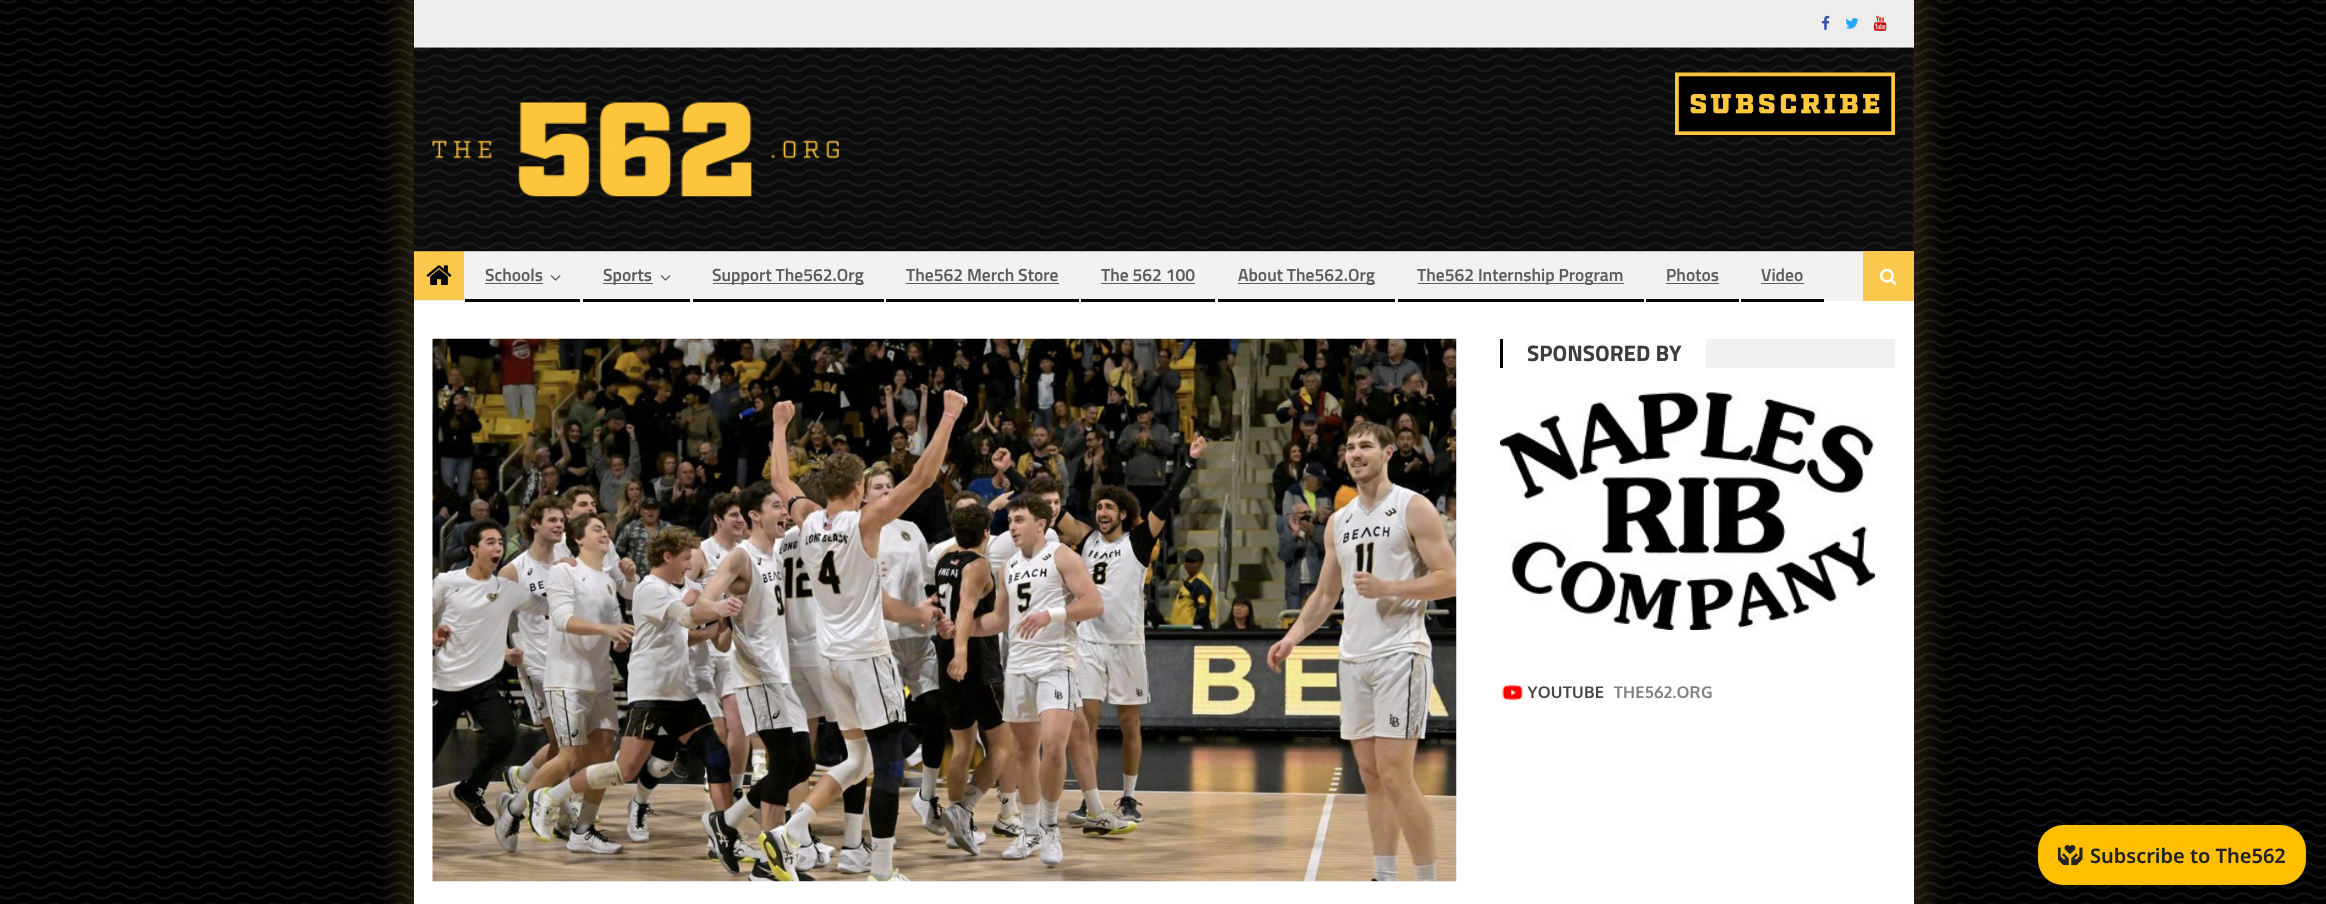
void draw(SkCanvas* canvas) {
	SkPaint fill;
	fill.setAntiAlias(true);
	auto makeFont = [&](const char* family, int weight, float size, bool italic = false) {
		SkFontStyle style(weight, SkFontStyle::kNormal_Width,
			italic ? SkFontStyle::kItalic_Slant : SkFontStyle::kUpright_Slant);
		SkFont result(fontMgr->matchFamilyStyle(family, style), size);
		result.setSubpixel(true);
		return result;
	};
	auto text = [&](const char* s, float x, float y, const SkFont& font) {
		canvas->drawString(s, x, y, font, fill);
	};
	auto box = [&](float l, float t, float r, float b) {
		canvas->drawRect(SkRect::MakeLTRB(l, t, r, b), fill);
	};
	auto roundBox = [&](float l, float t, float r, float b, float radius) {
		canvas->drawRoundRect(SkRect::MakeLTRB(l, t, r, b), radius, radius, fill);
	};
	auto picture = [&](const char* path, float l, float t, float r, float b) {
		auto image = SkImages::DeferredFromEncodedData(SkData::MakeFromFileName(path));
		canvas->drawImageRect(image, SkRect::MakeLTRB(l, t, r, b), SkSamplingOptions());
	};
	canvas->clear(0xFFFFFFFF);
	picture("image0.png", 0, 0, 2326, 904);
	fill.setColor(0x26FAC850);
	fill.setMaskFilter(SkMaskFilter::MakeBlur(kNormal_SkBlurStyle, 12.5f));
	canvas->drawRect(SkRect::MakeLTRB(401, -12, 1926, 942), fill);
	fill.setMaskFilter(nullptr);
	fill.setColor(0xFFFFFFFF);
	box(414, 301, 1914, 904);
	fill.setColor(0xFFEDEDED);
	box(414, 0, 1914, 48);
	picture("image1.png", 1822, 15, 1830, 30);
	picture("image2.png", 1845, 18, 1859, 29);
	picture("image3.png", 1874, 15, 1887, 31);
	fill.setColor(0xFFF2F2F2);
	box(414, 251, 1863, 301);
	fill.setColor(0xFFFBC84E);
	box(414, 251, 464, 300);
	picture("image4.png", 426, 265, 452, 285);
	fill.setColor(0xFF000000);
	box(465, 299, 580, 302);
	fill.setColor(0xFF5D5C5C);
	box(485, 283, 543, 284);
	picture("image5.png", 550, 275, 561, 281);
	fill.setColor(0xFF000000);
	box(583, 299, 690, 302);
	fill.setColor(0xFF5D5C5C);
	box(603, 283, 653, 284);
	picture("image5.png", 660, 275, 671, 281);
	fill.setColor(0xFF000000);
	box(693, 299, 884, 302);
	fill.setColor(0xFF5D5C5C);
	box(713, 283, 864, 284);
	fill.setColor(0xFF000000);
	box(886, 299, 1079, 302);
	fill.setColor(0xFF5D5C5C);
	box(906, 283, 1059, 284);
	fill.setColor(0xFF000000);
	box(1081, 299, 1215, 302);
	fill.setColor(0xFF5D5C5C);
	box(1101, 283, 1195, 284);
	fill.setColor(0xFF000000);
	box(1218, 299, 1395, 302);
	fill.setColor(0xFF5D5C5C);
	box(1238, 283, 1375, 284);
	fill.setColor(0xFF000000);
	box(1398, 299, 1644, 302);
	fill.setColor(0xFF5D5C5C);
	box(1418, 283, 1624, 284);
	fill.setColor(0xFF000000);
	box(1646, 299, 1739, 302);
	fill.setColor(0xFF5D5C5C);
	box(1666, 283, 1719, 284);
	fill.setColor(0xFF000000);
	box(1741, 299, 1824, 302);
	fill.setColor(0xFF5D5C5C);
	box(1761, 283, 1804, 284);
	fill.setColor(0xFF333333);
	box(414, 48, 1914, 251);
	picture("image7.png", 413, 47, 1914, 252);
	fill.setColor(0xFFFBC84E);
	box(1863, 251, 1914, 301);
	picture("image6.png", 1880, 268, 1897, 285);
	picture("image8.png", 432, 102, 839, 197);
	picture("image9.png", 1675, 72, 1895, 135);
	fill.setColor(0xFFFFBF00);
	roundBox(2038, 825, 2306, 885, 25);
	picture("image10.png", 2058, 845, 2083, 866);
	picture("image11.png", 432, 338, 1457, 882);
	fill.setColor(0xFFF1F1F1);
	box(1706, 339, 1895, 368);
	fill.setColor(0xFF000000);
	box(1500, 339, 1503, 368);
	picture("image12.png", 1500, 392, 1875, 630);
	picture("image13.png", 1502, 684, 1712, 701);
	auto font1 = makeFont("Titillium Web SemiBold", 600, 17.5f);
	fill.setColor(0xFF5D5C5C);
	text("Schools", 485, 281, font1);
	text("Sports", 603, 281, font1);
	text("Support The562.Org", 712, 281, font1);
	text("The562 Merch Store", 906, 281, font1);
	text("The 562 100", 1101, 281, font1);
	text("About The562.Org", 1238, 281, font1);
	text("The562 Internship Program", 1417, 281, font1);
	text("Photos", 1666, 281, font1);
	text("Video", 1761, 281, font1);
	auto font2 = makeFont("Noto Sans", 600, 20);
	fill.setColor(0xFF222222);
	text("Subscribe to The562", 2090, 863, font2);
	auto font3 = makeFont("Titillium Web", 700, 22.5f);
	fill.setColor(0xFF3D3D3D);
	text("SPONSORED BY", 1527, 361, font3);
}
